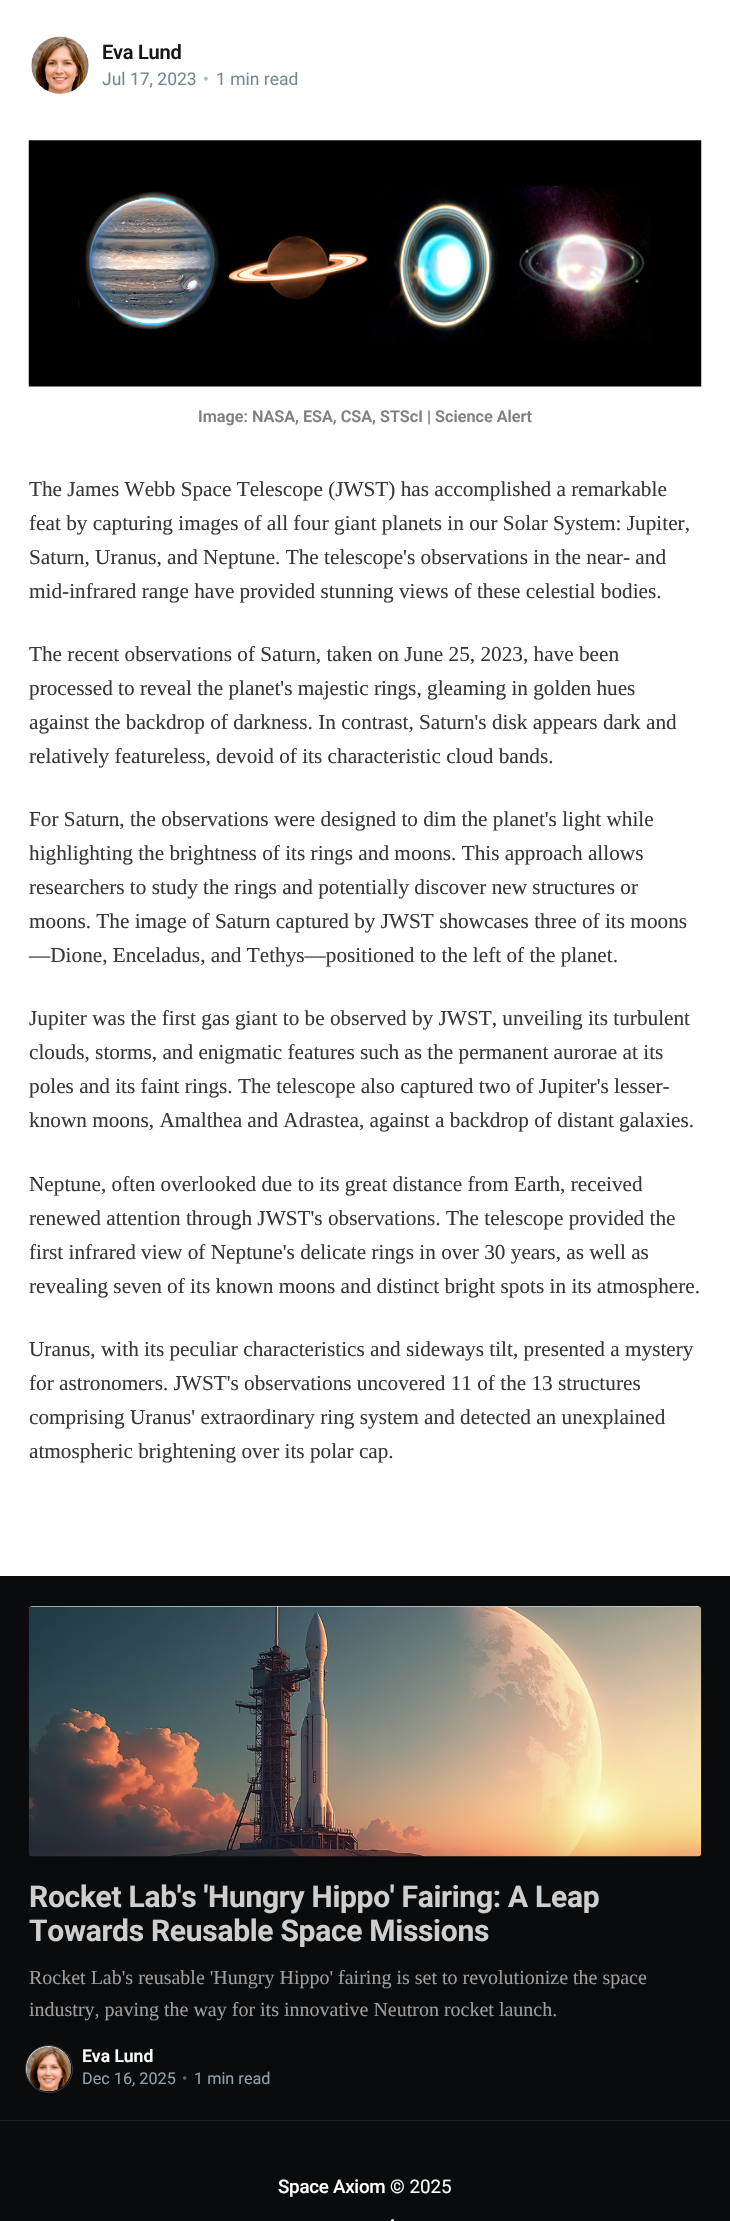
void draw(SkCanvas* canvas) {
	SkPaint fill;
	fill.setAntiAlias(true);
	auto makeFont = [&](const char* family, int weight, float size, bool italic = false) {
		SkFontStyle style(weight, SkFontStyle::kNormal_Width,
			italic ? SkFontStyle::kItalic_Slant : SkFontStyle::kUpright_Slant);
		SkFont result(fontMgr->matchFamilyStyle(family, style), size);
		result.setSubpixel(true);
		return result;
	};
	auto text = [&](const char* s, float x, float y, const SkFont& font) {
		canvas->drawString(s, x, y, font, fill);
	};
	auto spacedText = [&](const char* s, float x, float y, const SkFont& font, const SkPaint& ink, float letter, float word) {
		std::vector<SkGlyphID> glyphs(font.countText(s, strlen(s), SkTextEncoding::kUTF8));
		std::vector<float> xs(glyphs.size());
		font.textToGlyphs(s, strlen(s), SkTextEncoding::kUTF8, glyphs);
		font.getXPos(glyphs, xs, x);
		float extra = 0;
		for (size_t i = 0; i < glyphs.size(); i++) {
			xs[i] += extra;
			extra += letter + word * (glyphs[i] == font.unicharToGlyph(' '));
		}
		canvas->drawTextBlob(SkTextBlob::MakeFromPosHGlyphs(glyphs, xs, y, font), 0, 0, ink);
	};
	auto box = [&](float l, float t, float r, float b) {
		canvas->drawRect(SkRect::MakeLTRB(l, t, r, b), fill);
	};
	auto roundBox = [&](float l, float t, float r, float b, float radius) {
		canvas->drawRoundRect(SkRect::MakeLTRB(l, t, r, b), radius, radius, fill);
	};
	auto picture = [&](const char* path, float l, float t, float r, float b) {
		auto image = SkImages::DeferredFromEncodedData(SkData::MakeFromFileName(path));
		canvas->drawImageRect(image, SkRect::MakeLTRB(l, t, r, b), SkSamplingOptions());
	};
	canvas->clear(0xFFFFFFFF);
	fill.setColor(0xFFE4EAED);
	canvas->drawCircle(60, 65, 29, fill);
	picture("image0.png", 31, 36, 89, 94);
	picture("image1.png", 28, 140, 702, 387);
	fill.setColor(0xFF0A0B0C);
	box(0, 1576, 730, 2120);
	fill.setColor(0xFF232324);
	box(0, 2120, 730, 2121);
	fill.setColor(0xFFC5D2D9);
	roundBox(29, 1606, 701, 1856, 4);
	picture("image2.png", 28, 1606, 702, 1857);
	fill.setStyle(SkPaint::kStroke_Style);
	fill.setStrokeWidth(1);
	fill.setColor(0xFF3B3C3D);
	canvas->drawCircle(49, 2069, 23.5f, fill);
	fill.setStyle(SkPaint::kFill_Style);
	fill.setColor(0xFFE4EAED);
	canvas->drawCircle(48.5f, 2068.5f, 22.5f, fill);
	picture("image3.png", 26, 2046, 71, 2092);
	fill.setColor(0xFF0A0B0C);
	box(0, 2121, 730, 2221);
	fill.setColor(0xFFFFFFFF);
	canvas->drawCircle(392.5f, 2220.5f, 1.5f, fill);
	auto font1 = makeFont("Roboto", 600, 20);
	fill.setColor(0xFF15171A);
	spacedText("Eva Lund", 102, 59, font1, fill, -0.25f, 0);
	auto font2 = makeFont("Roboto", 400, 17.5f);
	fill.setColor(0xFF738A94);
	text("Jul 17, 2023", 102, 85, font2);
	fill.setColor(0xFFABB9BF);
	text("•", 203, 85, font2);
	fill.setColor(0xFF738A94);
	text("1 min read", 216, 85, font2);
	auto font3 = makeFont("Roboto", 600, 16.25f);
	fill.setColor(0xFF808080);
	text("Image: NASA, ESA, CSA, STScI | Science Alert", 198, 422, font3);
	auto font4 = makeFont("Liberation Serif", 400, 21.25f);
	fill.setColor(0xFF35373A);
	text("The James Webb Space Telescope (JWST) has accomplished a remarkable", 29, 496, font4);
	text("feat by capturing images of all four giant planets in our Solar System: Jupiter,", 29, 530, font4);
	text("Saturn, Uranus, and Neptune. The telescope's observations in the near- and", 29, 564, font4);
	text("mid-infrared range have provided stunning views of these celestial bodies.", 29, 598, font4);
	text("The recent observations of Saturn, taken on June 25, 2023, have been", 29, 661, font4);
	text("processed to reveal the planet's majestic rings, gleaming in golden hues", 29, 695, font4);
	text("against the backdrop of darkness. In contrast, Saturn's disk appears dark and", 29, 729, font4);
	text("relatively featureless, devoid of its characteristic cloud bands.", 29, 763, font4);
	text("For Saturn, the observations were designed to dim the planet's light while", 29, 826, font4);
	text("highlighting the brightness of its rings and moons. This approach allows", 29, 860, font4);
	text("researchers to study the rings and potentially discover new structures or", 29, 894, font4);
	text("moons. The image of Saturn captured by JWST showcases three of its moons", 29, 928, font4);
	text("—Dione, Enceladus, and Tethys—positioned to the left of the planet.", 29, 962, font4);
	text("Jupiter was the first gas giant to be observed by JWST, unveiling its turbulent", 29, 1025, font4);
	text("clouds, storms, and enigmatic features such as the permanent aurorae at its", 29, 1059, font4);
	text("poles and its faint rings. The telescope also captured two of Jupiter's lesser-", 29, 1093, font4);
	text("known moons, Amalthea and Adrastea, against a backdrop of distant galaxies.", 29, 1127, font4);
	text("Neptune, often overlooked due to its great distance from Earth, received", 29, 1191, font4);
	text("renewed attention through JWST's observations. The telescope provided the", 29, 1225, font4);
	text("first infrared view of Neptune's delicate rings in over 30 years, as well as", 29, 1259, font4);
	text("revealing seven of its known moons and distinct bright spots in its atmosphere.", 29, 1293, font4);
	text("Uranus, with its peculiar characteristics and sideways tilt, presented a mystery", 29, 1356, font4);
	text("for astronomers. JWST's observations uncovered 11 of the 13 structures", 29, 1390, font4);
	text("comprising Uranus' extraordinary ring system and detected an unexplained", 29, 1424, font4);
	text("atmospheric brightening over its polar cap.", 29, 1458, font4);
	auto font5 = makeFont("Roboto", 700, 30);
	fill.setColor(0xFFCECECE);
	spacedText("Rocket Lab's 'Hungry Hippo' Fairing: A Leap", 29, 1907, font5, fill, -0.3f, 0);
	spacedText("Towards Reusable Space Missions", 29, 1941, font5, fill, -0.3f, 0);
	auto font6 = makeFont("Liberation Serif", 400, 20);
	fill.setColor(0xFF9D9D9E);
	text("Rocket Lab's reusable 'Hungry Hippo' fairing is set to revolutionize the space", 29, 1984, font6);
	text("industry, paving the way for its innovative Neutron rocket launch.", 29, 2016, font6);
	auto font7 = makeFont("Roboto", 600, 17.5f);
	fill.setColor(0xFFFFFFFF);
	text("Eva Lund", 82, 2062, font7);
	auto font8 = makeFont("Roboto", 400, 16.25f);
	fill.setColor(0xFF90A2AA);
	text("Dec 16, 2025", 82, 2084, font8);
	fill.setColor(0xFF5A666B);
	text("•", 182, 2084, font8);
	fill.setColor(0xFF90A2AA);
	text("1 min read", 194, 2084, font8);
	auto font9 = makeFont("Roboto", 500, 18.75f);
	fill.setColor(0xFFFFFFFF);
	spacedText("Space Axiom", 278, 2193, font9, fill, -0.25f, 0);
	auto font10 = makeFont("Roboto", 400, 18.75f);
	text("© 2025", 390, 2193, font10);
}
